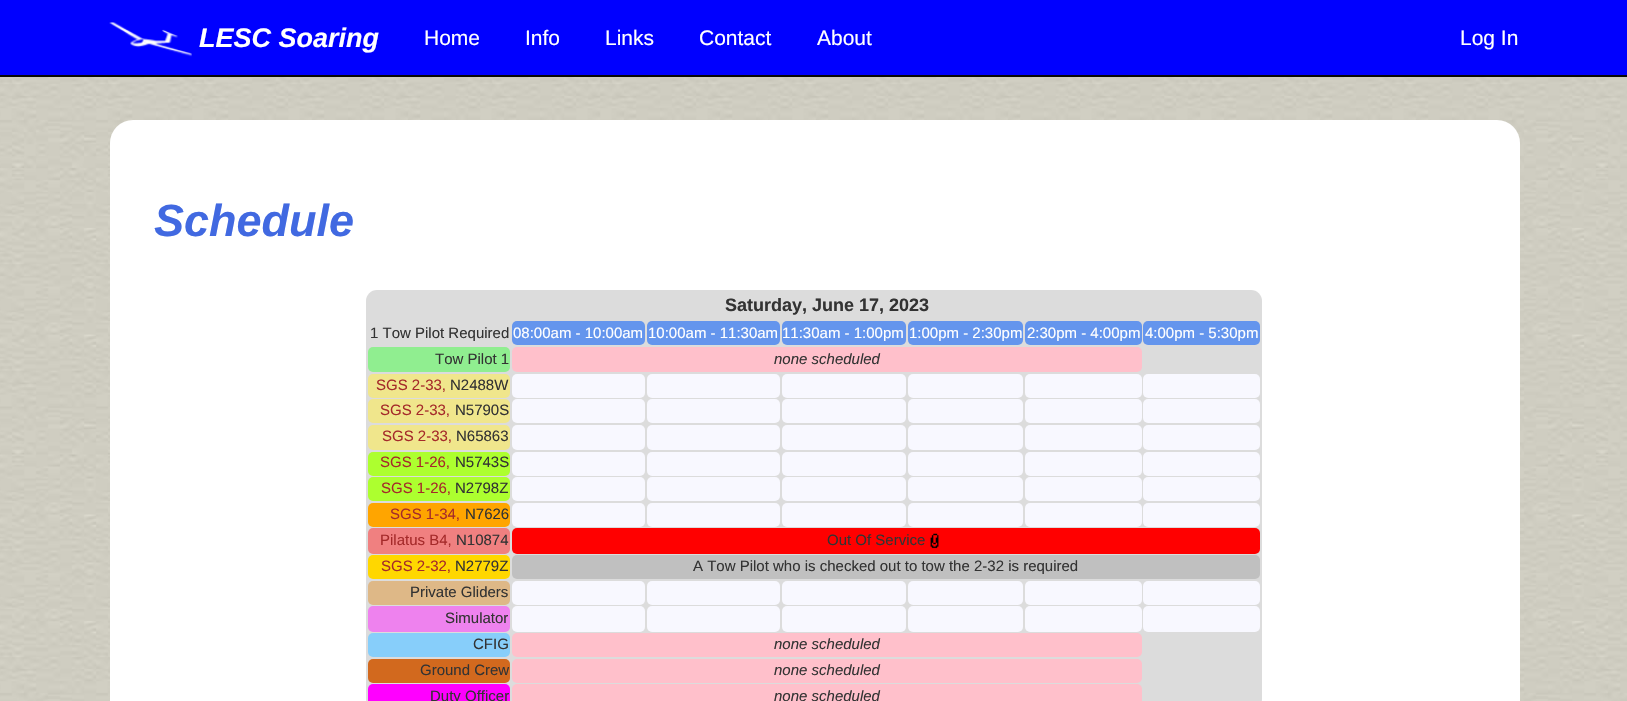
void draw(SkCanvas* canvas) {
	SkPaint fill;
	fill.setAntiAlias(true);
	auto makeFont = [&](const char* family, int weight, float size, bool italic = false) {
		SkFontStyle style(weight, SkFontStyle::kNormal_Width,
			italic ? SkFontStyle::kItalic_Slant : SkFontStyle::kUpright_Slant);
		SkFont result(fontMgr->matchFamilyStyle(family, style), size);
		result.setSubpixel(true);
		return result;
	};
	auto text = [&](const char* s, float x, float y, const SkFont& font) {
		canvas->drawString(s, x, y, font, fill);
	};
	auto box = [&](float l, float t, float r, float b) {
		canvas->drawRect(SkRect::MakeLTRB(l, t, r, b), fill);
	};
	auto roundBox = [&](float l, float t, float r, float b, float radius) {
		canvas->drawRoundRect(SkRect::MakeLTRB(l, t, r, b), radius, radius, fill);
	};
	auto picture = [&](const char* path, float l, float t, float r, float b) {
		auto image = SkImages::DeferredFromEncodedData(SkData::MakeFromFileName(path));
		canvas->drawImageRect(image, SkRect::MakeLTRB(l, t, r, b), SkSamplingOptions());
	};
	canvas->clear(0xFFFFFFFF);
	picture("image0.png", 0, 77, 1627, 701);
	fill.setColor(0xFF0000FF);
	box(0, 0, 1627, 75);
	fill.setColor(0xFF080808);
	box(0, 75, 1627, 77);
	picture("image1.png", 109, 22, 192, 57);
	fill.setColor(0xFFFFFFFF);
	roundBox(110, 120, 1520, 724, 23);
	fill.setColor(0xFFDCDCDC);
	roundBox(366, 290, 1262, 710, 11);
	fill.setColor(0xFF6495ED);
	roundBox(512, 321, 645, 345, 5);
	roundBox(647, 321, 780, 345, 5);
	roundBox(782, 321, 906, 345, 5);
	roundBox(908, 321, 1023, 345, 5);
	roundBox(1025, 321, 1142, 345, 5);
	roundBox(1143, 321, 1260, 345, 5);
	fill.setColor(0xFF90EE90);
	roundBox(368, 347, 510, 372, 5);
	fill.setColor(0xFFFFC0CB);
	roundBox(512, 347, 1142, 372, 5);
	fill.setColor(0xFFF0E68C);
	roundBox(368, 374, 510, 398, 5);
	fill.setColor(0xFFF8F8FF);
	roundBox(512, 374, 645, 398, 5);
	roundBox(647, 374, 780, 398, 5);
	roundBox(782, 374, 906, 398, 5);
	roundBox(908, 374, 1023, 398, 5);
	roundBox(1025, 374, 1142, 398, 5);
	roundBox(1143, 374, 1260, 398, 5);
	fill.setColor(0xFFF0E68C);
	roundBox(368, 399, 510, 423, 5);
	fill.setColor(0xFFF8F8FF);
	roundBox(512, 399, 645, 423, 5);
	roundBox(647, 399, 780, 423, 5);
	roundBox(782, 399, 906, 423, 5);
	roundBox(908, 399, 1023, 423, 5);
	roundBox(1025, 399, 1142, 423, 5);
	roundBox(1143, 399, 1260, 423, 5);
	fill.setColor(0xFFF0E68C);
	roundBox(368, 425, 510, 450, 5);
	fill.setColor(0xFFF8F8FF);
	roundBox(512, 425, 645, 450, 5);
	roundBox(647, 425, 780, 450, 5);
	roundBox(782, 425, 906, 450, 5);
	roundBox(908, 425, 1023, 450, 5);
	roundBox(1025, 425, 1142, 450, 5);
	roundBox(1143, 425, 1260, 450, 5);
	fill.setColor(0xFFADFF2F);
	roundBox(368, 452, 510, 476, 5);
	fill.setColor(0xFFF8F8FF);
	roundBox(512, 452, 645, 476, 5);
	roundBox(647, 452, 780, 476, 5);
	roundBox(782, 452, 906, 476, 5);
	roundBox(908, 452, 1023, 476, 5);
	roundBox(1025, 452, 1142, 476, 5);
	roundBox(1143, 452, 1260, 476, 5);
	fill.setColor(0xFFADFF2F);
	roundBox(368, 477, 510, 501, 5);
	fill.setColor(0xFFF8F8FF);
	roundBox(512, 477, 645, 501, 5);
	roundBox(647, 477, 780, 501, 5);
	roundBox(782, 477, 906, 501, 5);
	roundBox(908, 477, 1023, 501, 5);
	roundBox(1025, 477, 1142, 501, 5);
	roundBox(1143, 477, 1260, 501, 5);
	fill.setColor(0xFFFFA500);
	roundBox(368, 503, 510, 527, 5);
	fill.setColor(0xFFF8F8FF);
	roundBox(512, 503, 645, 527, 5);
	roundBox(647, 503, 780, 527, 5);
	roundBox(782, 503, 906, 527, 5);
	roundBox(908, 503, 1023, 527, 5);
	roundBox(1025, 503, 1142, 527, 5);
	roundBox(1143, 503, 1260, 527, 5);
	fill.setColor(0xFFF08080);
	roundBox(368, 528, 510, 554, 5);
	fill.setColor(0xFFFF0000);
	roundBox(512, 528, 1260, 554, 5);
	picture("image2.png", 930, 533, 939, 549);
	fill.setColor(0xFFFFD700);
	roundBox(368, 555, 510, 579, 5);
	fill.setColor(0xFFC0C0C0);
	roundBox(512, 555, 1260, 579, 5);
	fill.setColor(0xFFDEB887);
	roundBox(368, 581, 510, 605, 5);
	fill.setColor(0xFFF8F8FF);
	roundBox(512, 581, 645, 605, 5);
	roundBox(647, 581, 780, 605, 5);
	roundBox(782, 581, 906, 605, 5);
	roundBox(908, 581, 1023, 605, 5);
	roundBox(1025, 581, 1142, 605, 5);
	roundBox(1143, 581, 1260, 605, 5);
	fill.setColor(0xFFEE82EE);
	roundBox(368, 606, 510, 632, 5);
	fill.setColor(0xFFF8F8FF);
	roundBox(512, 606, 645, 632, 5);
	roundBox(647, 606, 780, 632, 5);
	roundBox(782, 606, 906, 632, 5);
	roundBox(908, 606, 1023, 632, 5);
	roundBox(1025, 606, 1142, 632, 5);
	roundBox(1143, 606, 1260, 632, 5);
	fill.setColor(0xFF87CEFA);
	roundBox(368, 633, 510, 657, 5);
	fill.setColor(0xFFFFC0CB);
	roundBox(512, 633, 1142, 657, 5);
	fill.setColor(0xFFD2691E);
	roundBox(368, 659, 510, 683, 5);
	fill.setColor(0xFFFFC0CB);
	roundBox(512, 659, 1142, 683, 5);
	fill.setColor(0xFFFF00FF);
	roundBox(368, 684, 510, 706, 5);
	fill.setColor(0xFFFFC0CB);
	roundBox(512, 684, 1142, 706, 5);
	auto font1 = makeFont("Liberation Sans", 700, 27, true);
	fill.setColor(0xFFFFFFFF);
	text("LESC Soaring", 199, 47, font1);
	auto font2 = makeFont("Liberation Sans", 400, 21);
	text("Home", 424, 45, font2);
	text("Info", 525, 45, font2);
	text("Links", 605, 45, font2);
	text("Contact", 699, 45, font2);
	text("About", 817, 45, font2);
	text("Log In", 1460, 45, font2);
	auto font3 = makeFont("Liberation Sans", 700, 45, true);
	fill.setColor(0xFF4169E1);
	text("Schedule", 154, 236, font3);
	auto font4 = makeFont("Liberation Sans", 700, 18);
	fill.setColor(0xFF333333);
	text("Saturday, June 17, 2023", 725, 311, font4);
	auto font5 = makeFont("Liberation Sans", 400, 15);
	text("1 Tow Pilot Required", 370, 338, font5);
	fill.setColor(0xFFFFFFFF);
	text("08:00am - 10:00am", 513, 338, font5);
	text("10:00am - 11:30am", 648, 338, font5);
	text("11:30am - 1:00pm", 782, 338, font5);
	text("1:00pm - 2:30pm", 909, 338, font5);
	text("2:30pm - 4:00pm", 1027, 338, font5);
	text("4:00pm - 5:30pm", 1145, 338, font5);
	fill.setColor(0xFF333333);
	text("Tow Pilot 1", 435, 364, font5);
	auto font6 = makeFont("Liberation Sans", 400, 15, true);
	text("none scheduled", 774, 364, font6);
	fill.setColor(0xFFA52A2A);
	text("SGS 2-33,", 376, 390, font5);
	fill.setColor(0xFF333333);
	text("N2488W", 450, 390, font5);
	fill.setColor(0xFFA52A2A);
	text("SGS 2-33,", 380, 415, font5);
	fill.setColor(0xFF333333);
	text("N5790S", 455, 415, font5);
	fill.setColor(0xFFA52A2A);
	text("SGS 2-33,", 382, 441, font5);
	fill.setColor(0xFF333333);
	text("N65863", 456, 441, font5);
	fill.setColor(0xFFA52A2A);
	text("SGS 1-26,", 380, 467, font5);
	fill.setColor(0xFF333333);
	text("N5743S", 455, 467, font5);
	fill.setColor(0xFFA52A2A);
	text("SGS 1-26,", 381, 493, font5);
	fill.setColor(0xFF333333);
	text("N2798Z", 455, 493, font5);
	fill.setColor(0xFFA52A2A);
	text("SGS 1-34,", 390, 519, font5);
	fill.setColor(0xFF333333);
	text("N7626", 465, 519, font5);
	fill.setColor(0xFFA52A2A);
	text("Pilatus B4,", 380, 545, font5);
	fill.setColor(0xFF333333);
	text("N10874", 456, 545, font5);
	text("Out Of Service", 827, 545, font5);
	fill.setColor(0xFFA52A2A);
	text("SGS 2-32,", 381, 571, font5);
	fill.setColor(0xFF333333);
	text("N2779Z", 455, 571, font5);
	text("A Tow Pilot who is checked out to tow the 2-32 is required", 693, 571, font5);
	text("Private Gliders", 410, 597, font5);
	text("Simulator", 445, 623, font5);
	text("CFIG", 473, 649, font5);
	text("none scheduled", 774, 649, font6);
	text("Ground Crew", 420, 675, font5);
	text("none scheduled", 774, 675, font6);
	text("Duty Officer", 430, 701, font5);
	text("none scheduled", 774, 701, font6);
}
